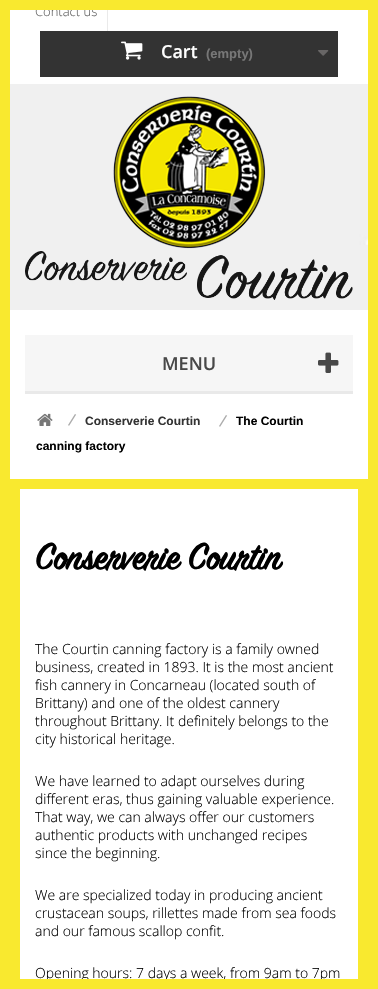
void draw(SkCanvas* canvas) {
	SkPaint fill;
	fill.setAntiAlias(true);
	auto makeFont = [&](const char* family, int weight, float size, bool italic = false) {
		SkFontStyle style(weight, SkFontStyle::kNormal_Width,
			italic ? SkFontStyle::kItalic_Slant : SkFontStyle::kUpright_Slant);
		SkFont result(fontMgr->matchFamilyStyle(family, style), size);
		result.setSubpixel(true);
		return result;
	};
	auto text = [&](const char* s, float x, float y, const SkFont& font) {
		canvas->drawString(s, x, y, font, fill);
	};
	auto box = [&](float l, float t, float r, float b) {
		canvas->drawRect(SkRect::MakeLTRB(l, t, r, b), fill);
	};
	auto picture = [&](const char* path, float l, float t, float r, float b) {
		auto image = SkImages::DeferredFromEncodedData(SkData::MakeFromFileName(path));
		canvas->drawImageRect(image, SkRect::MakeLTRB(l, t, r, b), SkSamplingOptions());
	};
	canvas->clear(0xFFFFFFFF);
	fill.setColor(0xFFF9E92F);
	box(368, 10, 378, 979);
	box(0, 0, 10, 989);
	fill.setColor(0xFFEAEAEA);
	box(107, 10, 108, 31);
	fill.setColor(0xFF333333);
	box(40, 31, 338, 77);
	picture("image0.png", 121, 41, 143, 60);
	picture("image1.png", 318, 50, 329, 56);
	picture("image2.png", 10, 84, 368, 310);
	picture("image3.png", 113, 96, 266, 249);
	picture("image4.png", 25, 251, 353, 300);
	fill.setColor(0xFFF6F6F6);
	box(25, 335, 353, 391);
	fill.setColor(0xFFE9E9E9);
	box(25, 391, 353, 394);
	picture("image5.png", 318, 352, 339, 373);
	picture("image6.png", 37, 413, 53, 426);
	fill.setStyle(SkPaint::kStroke_Style);
	fill.setStrokeWidth(10);
	fill.setColor(0xFFF9E92F);
	canvas->drawRect(SkRect::MakeLTRB(15, 484, 363, 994), fill);
	auto font1 = makeFont("Open Sans", 300, 13);
	fill.setStyle(SkPaint::kFill_Style);
	fill.setColor(0xFF616161);
	text("Contact us", 35, 16, font1);
	fill.setColor(0xFFF9E92F);
	box(10, 0, 378, 10);
	auto font2 = makeFont("Open Sans", 600, 18);
	fill.setColor(0xFFFFFFFF);
	text("Cart", 161, 58, font2);
	auto font3 = makeFont("Liberation Sans", 700, 13);
	fill.setColor(0xFF777777);
	text("(empty)", 206, 58, font3);
	fill.setColor(0xFF484848);
	text("MENU", 162, 370, font2);
	auto font4 = makeFont("Liberation Sans", 400, 17);
	fill.setColor(0xFFABABAB);
	canvas->save();
	canvas->rotate(17, 68, 425);
	text("/", 68, 425, font4);
	canvas->restore();
	auto font5 = makeFont("Liberation Sans", 700, 12);
	fill.setColor(0xFF333333);
	text("Conserverie Courtin", 85, 425, font5);
	fill.setColor(0xFFABABAB);
	canvas->save();
	canvas->rotate(17, 219, 426);
	text("/", 219, 426, font4);
	canvas->restore();
	fill.setColor(0xFF000000);
	text("The Courtin", 236, 425, font5);
	text("canning factory", 36, 450, font5);
	auto font6 = makeFont("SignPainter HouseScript", 700, 40);
	text("Conserverie Courtin", 35, 569, font6);
	auto font7 = makeFont("Open Sans", 300, 14);
	text("The Courtin canning factory is a family owned", 35, 654, font7);
	text("business, created in 1893. It is the most ancient", 35, 672, font7);
	text("fish cannery in Concarneau (located south of", 35, 690, font7);
	text("Brittany) and one of the oldest cannery", 35, 708, font7);
	text("throughout Brittany. It definitely belongs to the", 35, 726, font7);
	text("city historical heritage.", 35, 744, font7);
	text("We have learned to adapt ourselves during", 35, 786, font7);
	text("different eras, thus gaining valuable experience.", 35, 804, font7);
	text("That way, we can always offer our customers", 35, 822, font7);
	text("authentic products with unchanged recipes", 35, 840, font7);
	text("since the beginning.", 35, 858, font7);
	text("We are specialized today in producing ancient", 35, 900, font7);
	text("crustacean soups, rillettes made from sea foods", 35, 918, font7);
	text("and our famous scallop confit.", 35, 936, font7);
	text("Opening hours: 7 days a week, from 9am to 7pm", 35, 978, font7);
	fill.setColor(0xFFF9E92F);
	box(20, 979, 378, 989);
}
